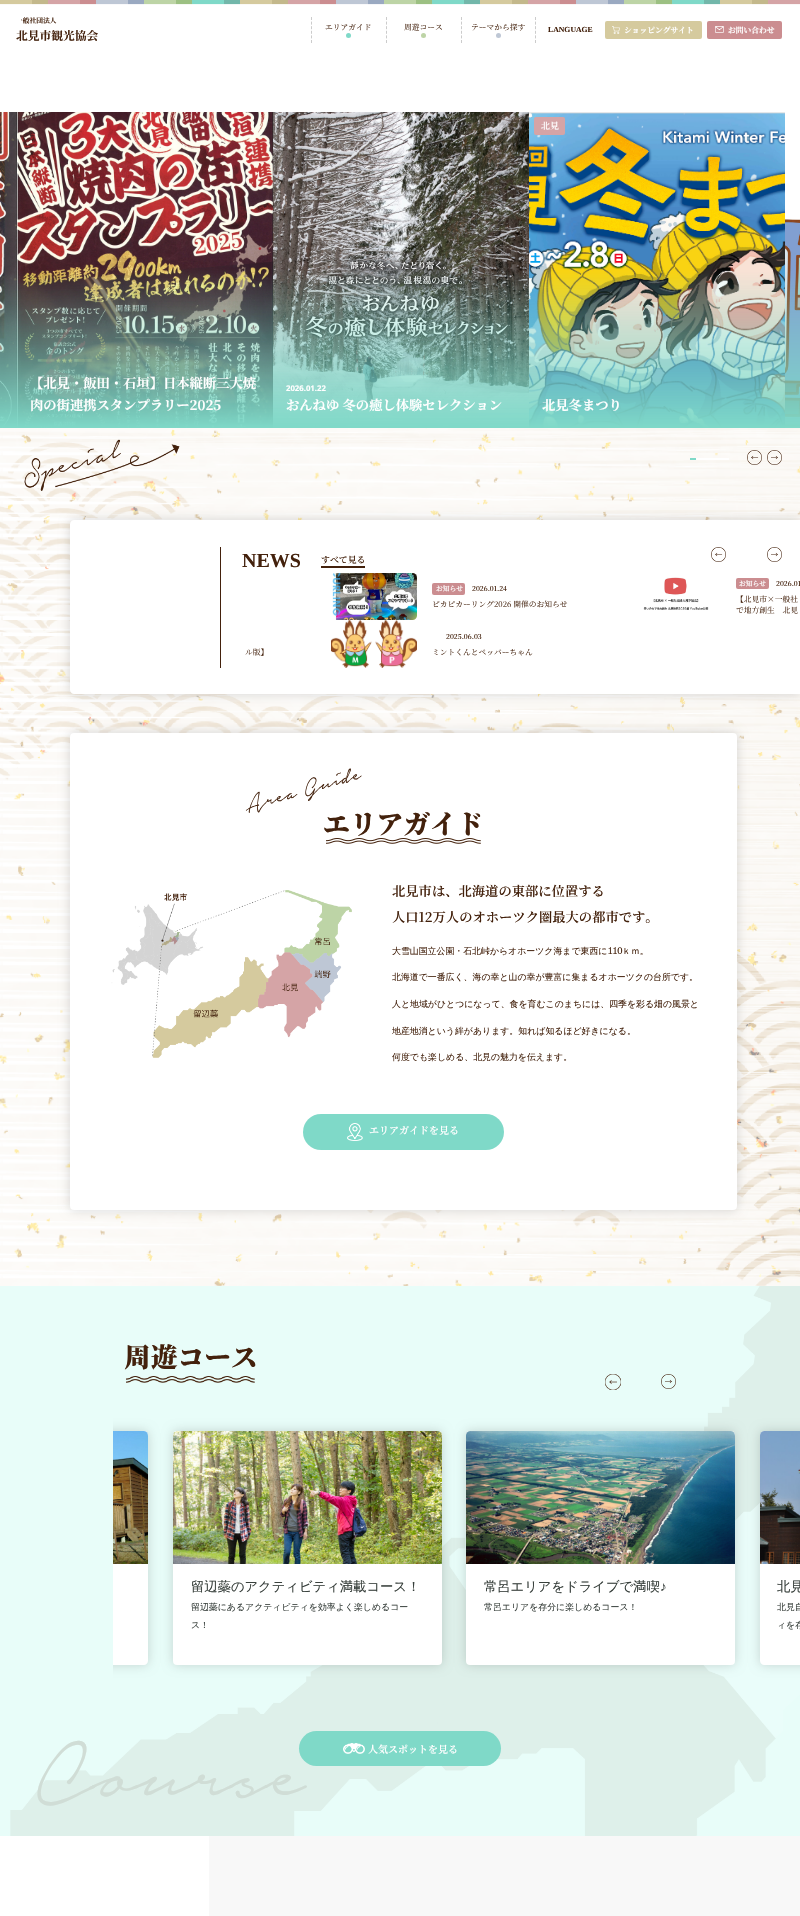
void draw(SkCanvas* canvas) {
	SkPaint fill;
	fill.setAntiAlias(true);
	auto makeFont = [&](const char* family, int weight, float size, bool italic = false) {
		SkFontStyle style(weight, SkFontStyle::kNormal_Width,
			italic ? SkFontStyle::kItalic_Slant : SkFontStyle::kUpright_Slant);
		SkFont result(fontMgr->matchFamilyStyle(family, style), size);
		result.setSubpixel(true);
		return result;
	};
	auto text = [&](const char* s, float x, float y, const SkFont& font) {
		canvas->drawString(s, x, y, font, fill);
	};
	auto box = [&](float l, float t, float r, float b) {
		canvas->drawRect(SkRect::MakeLTRB(l, t, r, b), fill);
	};
	auto roundBox = [&](float l, float t, float r, float b, float radius) {
		canvas->drawRoundRect(SkRect::MakeLTRB(l, t, r, b), radius, radius, fill);
	};
	auto picture = [&](const char* path, float l, float t, float r, float b) {
		auto image = SkImages::DeferredFromEncodedData(SkData::MakeFromFileName(path));
		canvas->drawImageRect(image, SkRect::MakeLTRB(l, t, r, b), SkSamplingOptions());
	};
	canvas->clear(0xFFFFFFFF);
	picture("image0.png", 0, 0, 800, 5);
	fill.setStyle(SkPaint::kStroke_Style);
	fill.setStrokeWidth(1);
	fill.setColor(0xFFCCCCCC);
	fill.setPathEffect(SkDashPathEffect::Make({{3, 1.6f}}, 0));
	canvas->drawPath(SkPathBuilder().moveTo(311.5f, 17).lineTo(311.5f, 43).detach(), fill);
	fill.setPathEffect(nullptr);
	fill.setStyle(SkPaint::kFill_Style);
	fill.setColor(0xFF7FD9C8);
	canvas->drawCircle(348.5f, 35.5f, 2.5f, fill);
	fill.setStyle(SkPaint::kStroke_Style);
	fill.setColor(0xFFCCCCCC);
	fill.setPathEffect(SkDashPathEffect::Make({{3, 1.6f}}, 0));
	canvas->drawPath(SkPathBuilder().moveTo(386.5f, 17).lineTo(386.5f, 43).detach(), fill);
	fill.setPathEffect(nullptr);
	fill.setStyle(SkPaint::kFill_Style);
	fill.setColor(0xFFBDD4A6);
	canvas->drawCircle(423.5f, 35.5f, 2.5f, fill);
	fill.setStyle(SkPaint::kStroke_Style);
	fill.setColor(0xFFCCCCCC);
	fill.setPathEffect(SkDashPathEffect::Make({{3, 1.6f}}, 0));
	canvas->drawPath(SkPathBuilder().moveTo(461.5f, 17).lineTo(461.5f, 43).detach(), fill);
	fill.setPathEffect(nullptr);
	fill.setStyle(SkPaint::kFill_Style);
	fill.setColor(0xFFBEC7D5);
	canvas->drawCircle(498.5f, 35.5f, 2.5f, fill);
	fill.setStyle(SkPaint::kStroke_Style);
	fill.setColor(0xFFCCCCCC);
	fill.setPathEffect(SkDashPathEffect::Make({{3, 1.6f}}, 0));
	canvas->drawPath(SkPathBuilder().moveTo(535.5f, 17).lineTo(535.5f, 43).detach(), fill);
	fill.setPathEffect(nullptr);
	fill.setStyle(SkPaint::kFill_Style);
	fill.setColor(0xFFD5CA9E);
	roundBox(605, 21, 702, 39, 2);
	picture("image1.png", 612, 26, 620, 34);
	fill.setColor(0xFFCB8D90);
	roundBox(707, 21, 782, 39, 2);
	picture("image2.png", 715, 26, 724, 33);
	picture("image3.png", 0, 112, 17, 428);
	picture("image4.png", 17, 112, 273, 428);
	picture("image5.png", 273, 112, 529, 428);
	picture("image6.png", 529, 112, 785, 428);
	fill.setColor(0xFFD5A4A6);
	roundBox(534, 117, 565, 135, 2);
	picture("image7.png", 785, 219, 800, 428);
	picture("image10.png", 0, 428, 800, 1286);
	fill.setColor(0xFFFFFFFF);
	box(690, 458, 729, 460);
	fill.setColor(0xFF7FD9C8);
	box(690, 458, 696, 460);
	picture("image8.png", 747, 450, 762, 465);
	picture("image9.png", 767, 450, 782, 465);
	picture("image11.png", 24, 439, 180, 491);
	fill.setColor(0x29000000);
	fill.setMaskFilter(SkMaskFilter::MakeBlur(kNormal_SkBlurStyle, 5.5f));
	canvas->drawRoundRect(SkRect::MakeLTRB(70, 520, 800, 694), 4, 4, fill);
	fill.setMaskFilter(nullptr);
	fill.setColor(0xFFFFFFFF);
	canvas->drawPath(SkPathBuilder().moveTo(74, 520).lineTo(800, 520).lineTo(800, 694).lineTo(74, 694).cubicTo(72, 694, 70, 692, 70, 690).lineTo(70, 524).cubicTo(70, 522, 72, 520, 74, 520).close().detach(), fill);
	fill.setColor(0xFF43210C);
	box(220, 547, 221, 668);
	box(321, 566, 365, 568);
	picture("image12.png", 711, 547, 726, 562);
	picture("image13.png", 767, 547, 782, 562);
	picture("image14.png", 332, 573, 417, 620);
	fill.setColor(0xFFCB8D90);
	roundBox(432, 583, 465, 595, 2);
	picture("image15.png", 643, 577, 709, 610);
	roundBox(736, 578, 769, 589, 2);
	picture("image16.png", 331, 620, 417, 668);
	fill.setColor(0x29000000);
	fill.setMaskFilter(SkMaskFilter::MakeBlur(kNormal_SkBlurStyle, 5.5f));
	canvas->drawRoundRect(SkRect::MakeLTRB(70, 733, 737, 1210), 4, 4, fill);
	fill.setMaskFilter(nullptr);
	fill.setColor(0xFFFFFFFF);
	roundBox(70, 733, 737, 1210, 4);
	picture("image17.png", 326, 838, 481, 844);
	picture("image18.png", 111, 890, 352, 1058);
	fill.setColor(0xFF7FD9C8);
	roundBox(303, 1114, 504, 1150, 18);
	picture("image19.png", 347, 1123, 363, 1141);
	picture("image20.png", 0, 1286, 800, 1836);
	picture("image21.png", 126, 1376, 255, 1383);
	picture("image22.png", 605, 1374, 621, 1390);
	picture("image23.png", 661, 1374, 676, 1389);
	canvas->save();
	canvas->clipRect(SkRect::MakeLTRB(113, 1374, 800, 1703));
	fill.setColor(0x29000000);
	fill.setMaskFilter(SkMaskFilter::MakeBlur(kNormal_SkBlurStyle, 5.5f));
	canvas->drawRoundRect(SkRect::MakeLTRB(-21, 1431, 148, 1665), 4, 4, fill);
	fill.setMaskFilter(nullptr);
	canvas->restore();
	fill.setColor(0xFFFFFFFF);
	canvas->drawPath(SkPathBuilder().moveTo(113, 1431).lineTo(144, 1431).cubicTo(146, 1431, 148, 1433, 148, 1435).lineTo(148, 1661).cubicTo(148, 1663, 146, 1665, 144, 1665).lineTo(113, 1665).close().detach(), fill);
	picture("image24.png", 113, 1431, 148, 1564);
	fill.setColor(0x29000000);
	fill.setMaskFilter(SkMaskFilter::MakeBlur(kNormal_SkBlurStyle, 5.5f));
	canvas->drawRoundRect(SkRect::MakeLTRB(173, 1431, 442, 1665), 4, 4, fill);
	fill.setMaskFilter(nullptr);
	fill.setColor(0xFFFFFFFF);
	roundBox(173, 1431, 442, 1665, 4);
	picture("image25.png", 173, 1431, 442, 1564);
	fill.setColor(0x29000000);
	fill.setMaskFilter(SkMaskFilter::MakeBlur(kNormal_SkBlurStyle, 5.5f));
	canvas->drawRoundRect(SkRect::MakeLTRB(466, 1431, 735, 1665), 4, 4, fill);
	fill.setMaskFilter(nullptr);
	fill.setColor(0xFFFFFFFF);
	roundBox(466, 1431, 735, 1665, 4);
	picture("image26.png", 466, 1431, 735, 1564);
	fill.setColor(0x29000000);
	fill.setMaskFilter(SkMaskFilter::MakeBlur(kNormal_SkBlurStyle, 5.5f));
	canvas->drawRoundRect(SkRect::MakeLTRB(760, 1431, 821, 1665), 4, 4, fill);
	fill.setMaskFilter(nullptr);
	fill.setColor(0xFFFFFFFF);
	canvas->drawPath(SkPathBuilder().moveTo(764, 1431).lineTo(800, 1431).lineTo(800, 1665).lineTo(764, 1665).cubicTo(762, 1665, 760, 1663, 760, 1661).lineTo(760, 1435).cubicTo(760, 1433, 762, 1431, 764, 1431).close().detach(), fill);
	picture("image27.png", 760, 1431, 800, 1564);
	fill.setColor(0xFFF8F8F8);
	box(209, 1836, 800, 1916);
	auto font1 = makeFont("Noto Serif JP", 700, 6.75f);
	fill.setColor(0xFF43210C);
	text("一般社団法人", 16, 23, font1);
	auto font2 = makeFont("Noto Serif JP", 700, 11.75f);
	text("北見市観光協会", 16, 40, font2);
	auto font3 = makeFont("Noto Serif JP", 400, 7.75f);
	text("エリアガイド", 325, 30, font3);
	text("周遊コース", 404, 30, font3);
	text("テーマから探す", 471, 30, font3);
	auto font4 = makeFont("Liberation Serif", 700, 7.75f);
	text("LANGUAGE", 548, 32, font4);
	auto font5 = makeFont("Noto Serif JP", 700, 7.75f);
	fill.setColor(0xFFFFFFFF);
	text("ショッピングサイト", 624, 33, font5);
	text("お問い合わせ", 728, 33, font5);
	auto font6 = makeFont("Noto Serif JP", 700, 13.3f);
	text("【北見・飯田・石垣】日本縦断三大焼", 30, 388, font6);
	text("肉の街連携スタンプラリー2025", 30, 410, font6);
	auto font7 = makeFont("Noto Sans", 700, 7.75f);
	text("2026.01.22", 286, 391, font7);
	text("おんねゆ 冬の癒し体験セレクション", 286, 410, font6);
	auto font8 = makeFont("Noto Serif JP", 600, 8.9f);
	text("北見", 541, 129, font8);
	text("北見冬まつり", 542, 410, font6);
	auto font9 = makeFont("Liberation Serif", 700, 20);
	fill.setColor(0xFF43210C);
	text("NEWS", 242, 567, font9);
	text("すべて見る", 321, 563, font8);
	auto font10 = makeFont("Noto Serif JP", 600, 6.75f);
	fill.setColor(0xFFFFFFFF);
	text("お知らせ", 436, 591, font10);
	fill.setColor(0xFF43210C);
	text("2026.01.24", 472, 591, font10);
	text("ピカピカーリング2026 開催のお知らせ", 432, 607, font3);
	fill.setColor(0xFFFFFFFF);
	text("お知らせ", 739, 586, font10);
	fill.setColor(0xFF43210C);
	text("2026.01", 776, 586, font10);
	text("【北見市×一般社", 736, 602, font3);
	text("で地方創生　北見", 736, 613, font3);
	text("ル版】", 245, 655, font3);
	text("2025.06.03", 446, 639, font10);
	text("ミントくんとペッパーちゃん", 432, 655, font3);
	auto font11 = makeFont("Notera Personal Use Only", 400, 28);
	canvas->save();
	canvas->rotate(-16, 246, 811);
	text("Area Guide", 246, 811, font11);
	canvas->restore();
	auto font12 = makeFont("Noto Serif JP", 900, 26.75f);
	text("エリアガイド", 323, 834, font12);
	auto font13 = makeFont("Noto Serif JP", 600, 13.3f);
	text("北見市は、北海道の東部に位置する", 392, 896, font13);
	text("人口12万人のオホーツク圏最大の都市です。", 392, 922, font13);
	auto font14 = makeFont("WenQuanYi Zen Hei", 500, 8.9f);
	text("大雪山国立公園・石北峠からオホーツク海まで東西に", 392, 954, font14);
	auto font15 = makeFont("Besley", 400, 8.9f);
	text("110", 608, 954, font15);
	text("ｋｍ。", 622, 954, font14);
	text("北海道で一番広く、海の幸と山の幸が豊富に集まるオホーツクの台所です。", 392, 980, font14);
	text("人と地域がひとつになって、食を育むこのまちには、四季を彩る畑の風景と", 392, 1007, font14);
	text("地産地消という絆があります。知れば知るほど好きになる。", 392, 1034, font14);
	text("何度でも楽しめる、北見の魅力を伝えます。", 392, 1060, font14);
	auto font16 = makeFont("Noto Serif JP", 600, 10);
	fill.setColor(0xFFFFFFFF);
	text("エリアガイドを見る", 369, 1134, font16);
	fill.setColor(0xFF43210C);
	text("周遊コース", 124, 1367, font12);
	auto font17 = makeFont("WenQuanYi Zen Hei", 500, 13.3f);
	fill.setColor(0xFF38403C);
	text("留辺蘂のアクティビティ満載コース！", 191, 1591, font17);
	text("留辺蘂にあるアクティビティを効率よく楽しめるコー", 191, 1610, font14);
	text("ス！", 191, 1628, font14);
	text("常呂エリアをドライブで満喫", 484, 1591, font17);
	auto font18 = makeFont("Liberation Serif", 400, 13.3f);
	text("♪", 660, 1591, font18);
	text("常呂エリアを存分に楽しめるコース！", 484, 1610, font14);
	text("北見", 777, 1591, font17);
	text("北見自", 777, 1610, font14);
	text("ィを存", 777, 1628, font14);
	auto font19 = makeFont("Notera Personal Use Only", 400, 111);
	fill.setColor(0xFFD0DDD6);
	text("Course", 37, 1795, font19);
	fill.setColor(0xFF7FD9C8);
	roundBox(299, 1731, 501, 1766, 17.5f);
	picture("image28.png", 343, 1743, 365, 1754);
	fill.setColor(0xFFFFFFFF);
	text("人気スポットを見る", 368, 1753, font16);
}
